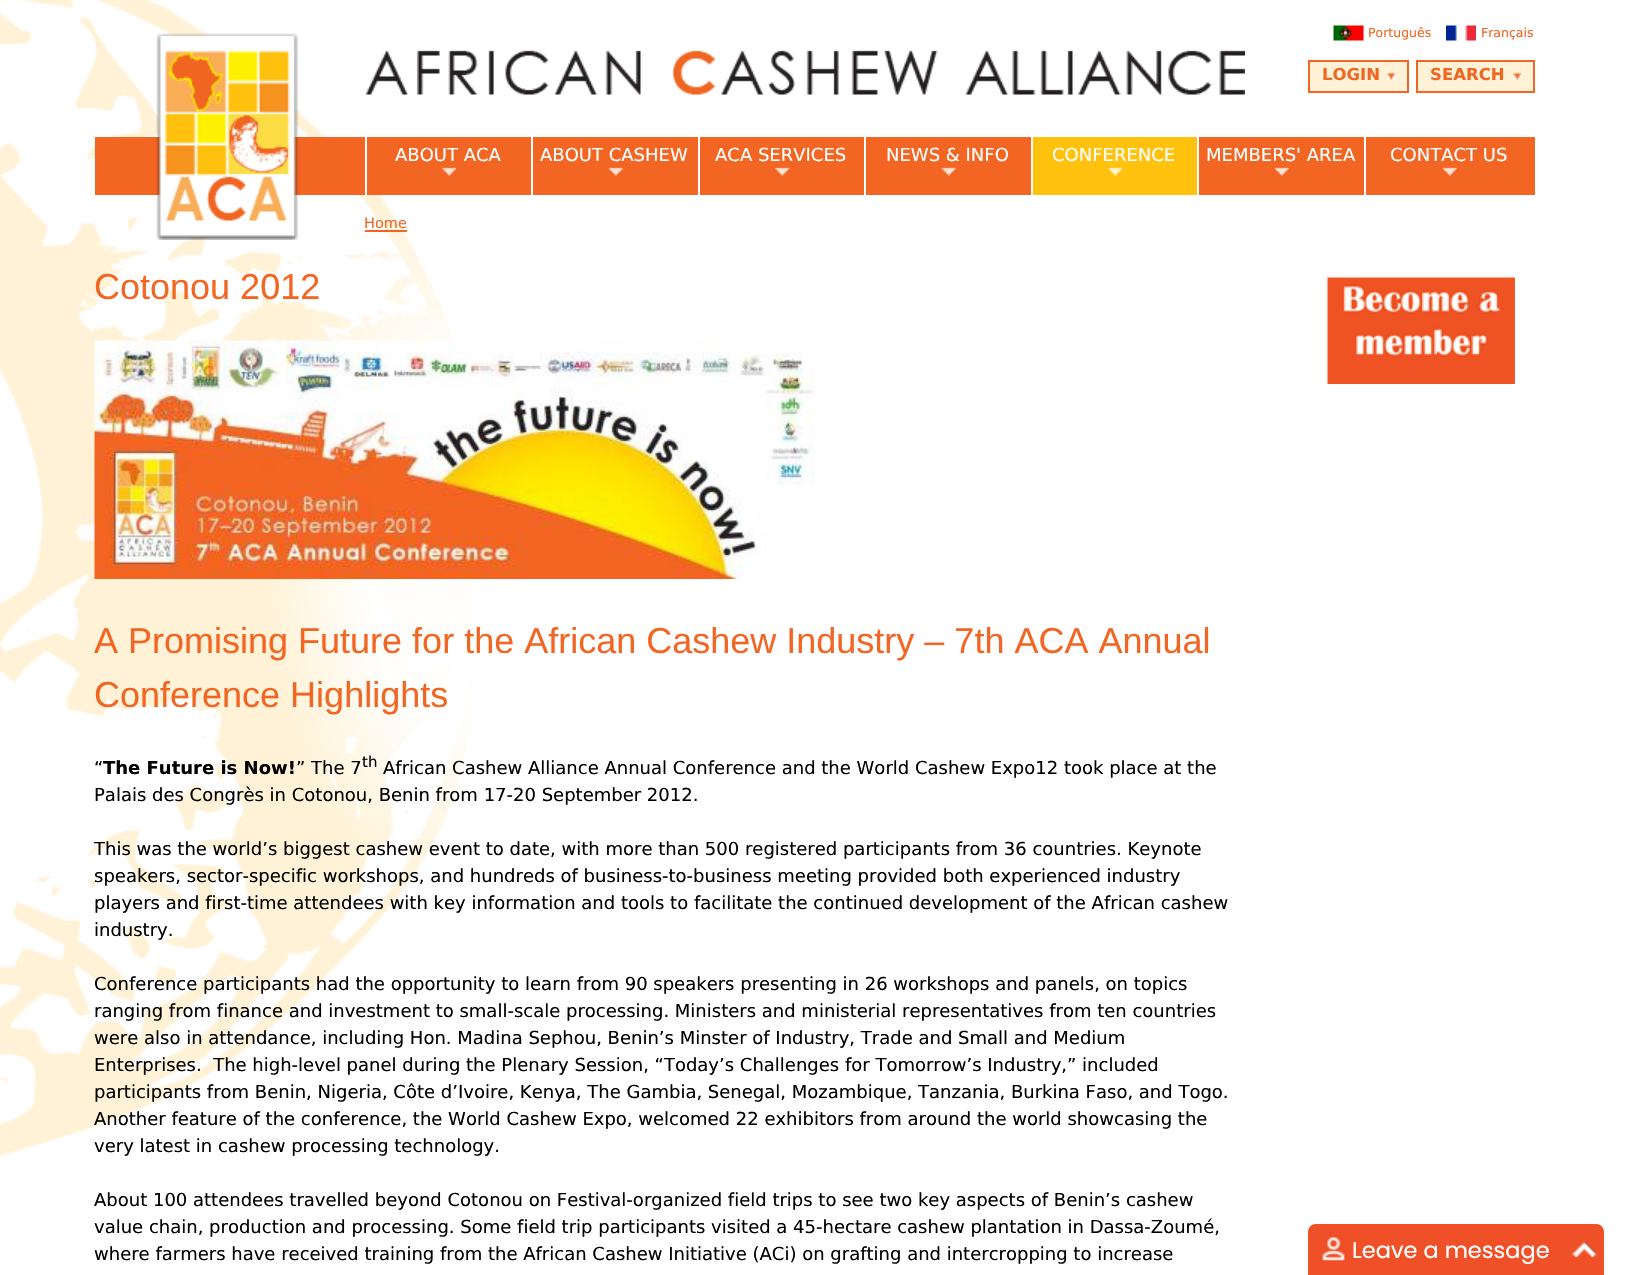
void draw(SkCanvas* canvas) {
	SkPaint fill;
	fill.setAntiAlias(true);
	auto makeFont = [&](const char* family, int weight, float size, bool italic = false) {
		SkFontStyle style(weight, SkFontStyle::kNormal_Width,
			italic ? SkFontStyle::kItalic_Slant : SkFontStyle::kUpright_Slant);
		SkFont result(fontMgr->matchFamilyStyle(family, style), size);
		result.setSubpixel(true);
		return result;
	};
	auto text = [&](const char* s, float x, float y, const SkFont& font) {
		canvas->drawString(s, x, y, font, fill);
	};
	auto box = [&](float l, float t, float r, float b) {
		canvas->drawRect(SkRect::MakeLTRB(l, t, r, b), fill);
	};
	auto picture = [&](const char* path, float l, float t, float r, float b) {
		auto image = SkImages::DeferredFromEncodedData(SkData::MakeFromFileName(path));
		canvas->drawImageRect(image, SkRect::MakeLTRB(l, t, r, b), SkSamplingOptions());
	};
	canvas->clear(0xFFFFFFFF);
	picture("image0.png", 0, 0, 472, 1156);
	fill.setColor(0xFFF26523);
	box(95, 137, 1535, 195);
	picture("image1.png", 156, 33, 299, 240);
	picture("image2.png", 365, 50, 1245, 95);
	picture("image3.png", 1333, 25, 1364, 41);
	picture("image4.png", 1446, 25, 1476, 41);
	fill.setColor(0xFFFFF2D6);
	canvas->drawRect(SkRect::MakeLTRB(1309, 61, 1408, 92), fill);
	fill.setStyle(SkPaint::kStroke_Style);
	fill.setStrokeWidth(2);
	fill.setColor(0xFFF26522);
	canvas->drawRect(SkRect::MakeLTRB(1309, 61, 1408, 92), fill);
	picture("image5.png", 1387, 72, 1395, 80);
	fill.setStyle(SkPaint::kFill_Style);
	fill.setColor(0xFFFFF2D6);
	canvas->drawRect(SkRect::MakeLTRB(1417, 61, 1534, 92), fill);
	fill.setStyle(SkPaint::kStroke_Style);
	fill.setColor(0xFFF26522);
	canvas->drawRect(SkRect::MakeLTRB(1417, 61, 1534, 92), fill);
	picture("image5.png", 1513, 72, 1521, 80);
	fill.setStyle(SkPaint::kFill_Style);
	fill.setColor(0xFFFFFFFF);
	box(365, 137, 367, 195);
	picture("image6.png", 442, 167, 456, 176);
	box(531, 137, 533, 195);
	picture("image7.png", 608, 167, 623, 176);
	box(698, 137, 700, 195);
	picture("image8.png", 775, 167, 789, 176);
	box(864, 137, 866, 195);
	picture("image9.png", 941, 167, 956, 176);
	fill.setColor(0xFFFFC20F);
	box(1033, 137, 1197, 195);
	fill.setColor(0xFFFFFFFF);
	box(1031, 137, 1033, 195);
	picture("image10.png", 1108, 167, 1122, 176);
	box(1197, 137, 1199, 195);
	picture("image11.png", 1274, 167, 1289, 176);
	box(1364, 137, 1366, 195);
	picture("image7.png", 1442, 167, 1457, 176);
	fill.setColor(0xFFF26522);
	box(365, 230, 407, 232);
	picture("image12.png", 94, 340, 815, 579);
	picture("image13.png", 1327, 277, 1515, 384);
	fill.setColor(0xFFEF5028);
	canvas->drawPath(SkPathBuilder().moveTo(1316, 1224).lineTo(1596, 1224).cubicTo(1600.5f, 1224, 1604, 1227.5f, 1604, 1232).lineTo(1604, 1275).lineTo(1308, 1275).lineTo(1308, 1232).cubicTo(1308, 1227.5f, 1311.5f, 1224, 1316, 1224).close().detach(), fill);
	picture("image14.png", 1322, 1237, 1345, 1261);
	picture("image15.png", 1571, 1241, 1597, 1258);
	auto font1 = makeFont("DejaVu Sans", 400, 12.5f);
	fill.setColor(0xFFF26522);
	text("Português", 1368, 37, font1);
	text("Français", 1481, 37, font1);
	auto font2 = makeFont("DejaVu Sans", 700, 16.5f);
	text("LOGIN", 1322, 80, font2);
	text("SEARCH", 1430, 80, font2);
	auto font3 = makeFont("DejaVu Sans", 400, 18);
	fill.setColor(0xFFFFFFFF);
	text("ABOUT ACA", 395, 161, font3);
	text("ABOUT CASHEW", 540, 161, font3);
	text("ACA SERVICES", 715, 161, font3);
	text("NEWS & INFO", 886, 161, font3);
	text("CONFERENCE", 1052, 161, font3);
	text("MEMBERS' AREA", 1206, 161, font3);
	text("CONTACT US", 1390, 161, font3);
	auto font4 = makeFont("DejaVu Sans", 400, 14.5f);
	fill.setColor(0xFFF26522);
	text("Home", 364, 228, font4);
	auto font5 = makeFont("Liberation Sans", 400, 36);
	text("Cotonou 2012", 94, 299, font5);
	text("A Promising Future for the African Cashew Industry – 7th ACA Annual", 94, 653, font5);
	text("Conference Highlights", 94, 707, font5);
	fill.setColor(0xFF000000);
	text("“", 94, 774, font3);
	auto font6 = makeFont("DejaVu Sans", 700, 18);
	text("The Future is Now!", 103, 774, font6);
	text("” The 7", 296, 774, font3);
	auto font7 = makeFont("DejaVu Sans", 400, 15);
	text("th", 362, 767, font7);
	text("African Cashew Alliance Annual Conference and the World Cashew Expo12 took place at the", 383, 774, font3);
	text("Palais des Congrès in Cotonou, Benin from 17-20 September 2012.", 94, 801, font3);
	text("This was the world’s biggest cashew event to date, with more than 500 registered participants from 36 countries. Keynote", 94, 855, font3);
	text("speakers, sector-specific workshops, and hundreds of business-to-business meeting provided both experienced industry", 94, 882, font3);
	text("players and first-time attendees with key information and tools to facilitate the continued development of the African cashew", 94, 909, font3);
	text("industry.", 94, 936, font3);
	text("Conference participants had the opportunity to learn from 90 speakers presenting in 26 workshops and panels, on topics", 94, 990, font3);
	text("ranging from finance and investment to small-scale processing. Ministers and ministerial representatives from ten countries", 94, 1017, font3);
	text("were also in attendance, including Hon. Madina Sephou, Benin’s Minster of Industry, Trade and Small and Medium", 94, 1044, font3);
	text("Enterprises.  The high-level panel during the Plenary Session, “Today’s Challenges for Tomorrow’s Industry,” included", 94, 1071, font3);
	text("participants from Benin, Nigeria, Côte d’Ivoire, Kenya, The Gambia, Senegal, Mozambique, Tanzania, Burkina Faso, and Togo.", 94, 1098, font3);
	text("Another feature of the conference, the World Cashew Expo, welcomed 22 exhibitors from around the world showcasing the", 94, 1125, font3);
	text("very latest in cashew processing technology.", 94, 1152, font3);
	text("About 100 attendees travelled beyond Cotonou on Festival-organized field trips to see two key aspects of Benin’s cashew", 94, 1206, font3);
	text("value chain, production and processing. Some field trip participants visited a 45-hectare cashew plantation in Dassa-Zoumé,", 94, 1233, font3);
	text("where farmers have received training from the African Cashew Initiative (ACi) on grafting and intercropping to increase", 94, 1260, font3);
	auto font8 = makeFont("Poppins", 400, 22.5f);
	fill.setColor(0xFFFFFFFF);
	text("Leave a message", 1352, 1258, font8);
}
